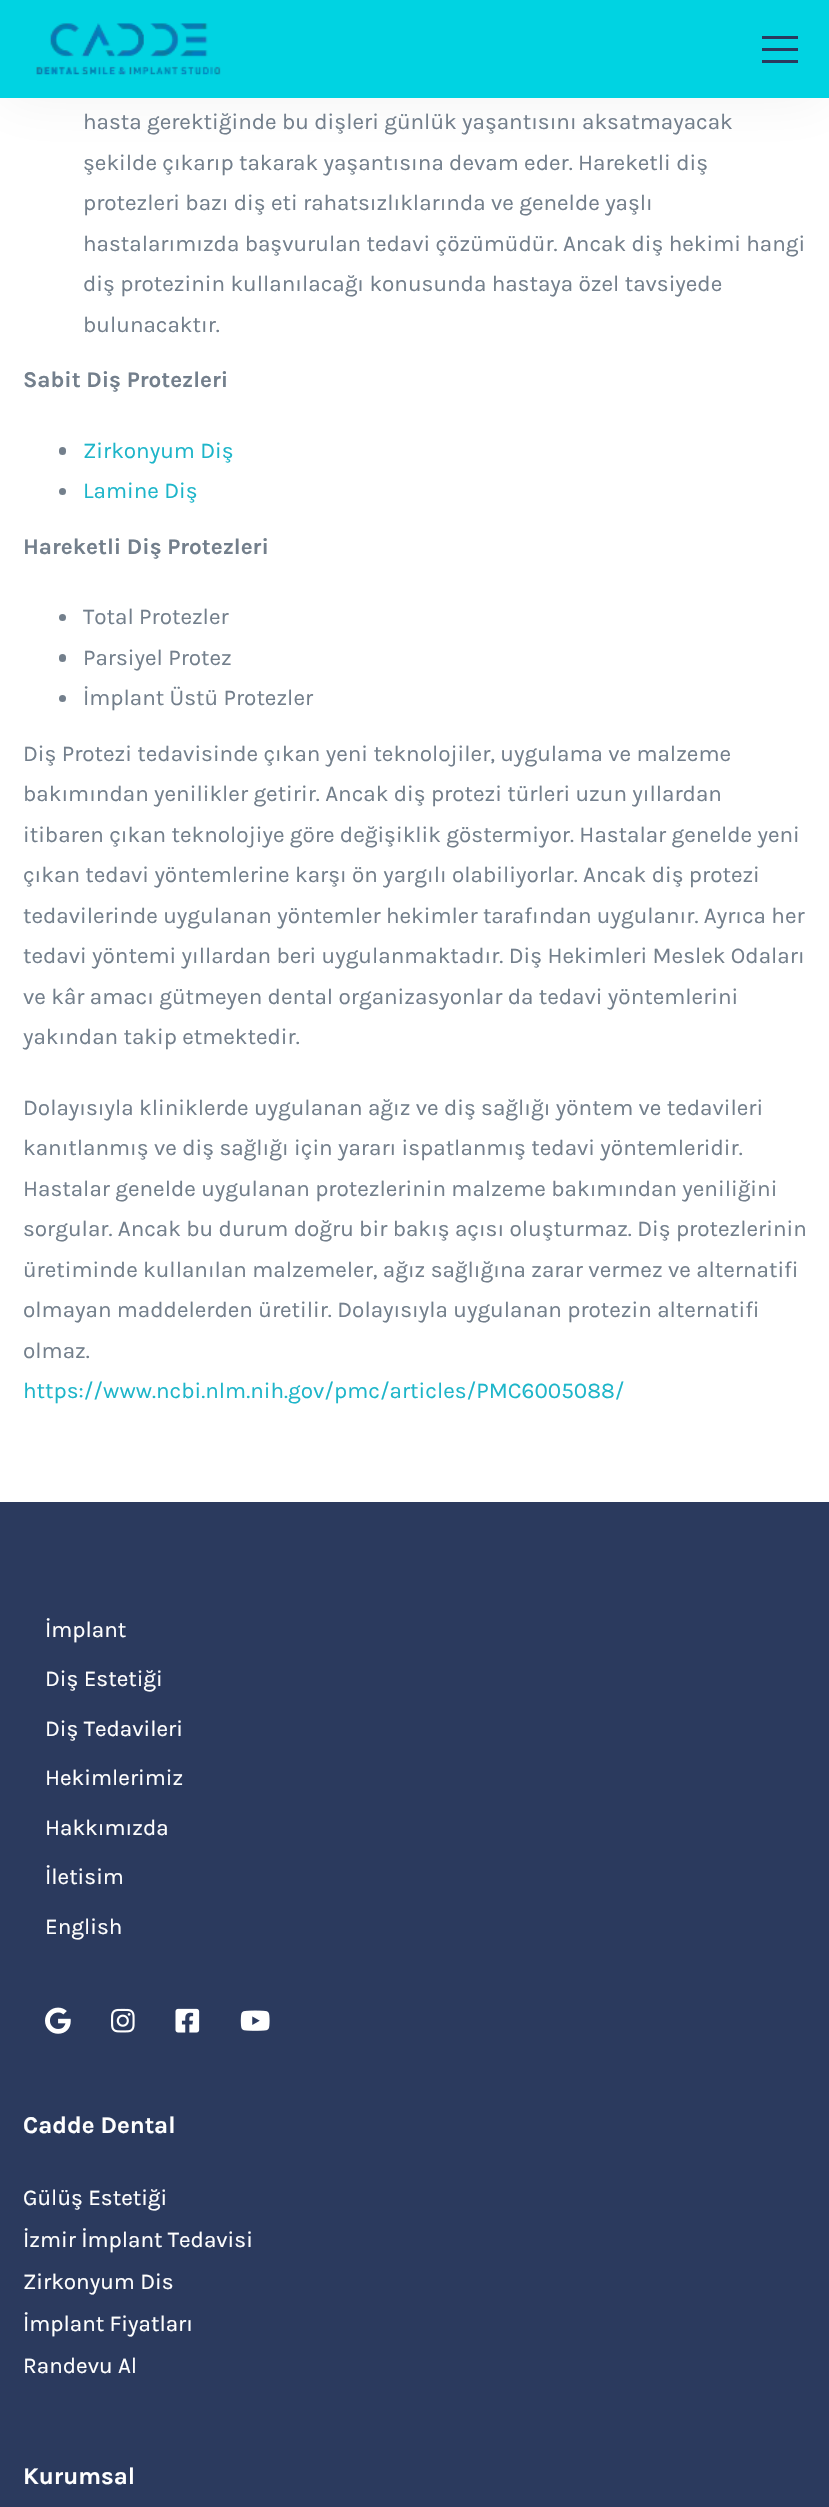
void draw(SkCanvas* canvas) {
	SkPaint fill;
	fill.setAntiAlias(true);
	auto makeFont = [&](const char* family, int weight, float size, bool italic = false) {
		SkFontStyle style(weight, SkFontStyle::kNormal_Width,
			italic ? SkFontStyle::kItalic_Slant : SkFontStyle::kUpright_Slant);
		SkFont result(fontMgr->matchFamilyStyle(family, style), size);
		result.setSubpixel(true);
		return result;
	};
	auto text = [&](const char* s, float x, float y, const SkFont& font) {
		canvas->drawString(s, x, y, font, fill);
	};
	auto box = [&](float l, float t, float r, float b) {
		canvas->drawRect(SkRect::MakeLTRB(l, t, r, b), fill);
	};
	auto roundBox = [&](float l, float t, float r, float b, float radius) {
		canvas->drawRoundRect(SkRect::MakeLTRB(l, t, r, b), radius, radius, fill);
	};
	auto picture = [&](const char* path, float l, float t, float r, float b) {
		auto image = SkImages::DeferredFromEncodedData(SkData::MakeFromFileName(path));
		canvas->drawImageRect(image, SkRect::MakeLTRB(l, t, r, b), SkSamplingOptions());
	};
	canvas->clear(0xFFFFFFFF);
	fill.setColor(0x0D0F0F0F);
	fill.setMaskFilter(SkMaskFilter::MakeBlur(kNormal_SkBlurStyle, 30));
	canvas->drawRect(SkRect::MakeLTRB(0, 3, 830, 101), fill);
	fill.setMaskFilter(nullptr);
	fill.setColor(0xFF00D3E2);
	box(0, 0, 829, 98);
	picture("image0.png", 36, 23, 221, 75);
	fill.setColor(0xFF2B3A5E);
	box(762, 60, 798, 63);
	box(762, 36, 798, 39);
	box(762, 48, 798, 51);
	fill.setColor(0xFF737F8C);
	roundBox(59, 447, 66, 455, 3.5f);
	canvas->drawCircle(62.5f, 491.5f, 3.5f, fill);
	canvas->drawCircle(62.5f, 617.5f, 3.5f, fill);
	roundBox(59, 654, 66, 662, 3.5f);
	canvas->drawCircle(62.5f, 698.5f, 3.5f, fill);
	fill.setColor(0xFF2B3A5E);
	box(0, 1502, 829, 2507);
	picture("image1.png", 45, 2007, 71, 2034);
	picture("image2.png", 111, 2008, 135, 2033);
	picture("image3.png", 175, 2008, 200, 2033);
	picture("image4.png", 240, 2010, 270, 2031);
	auto font1 = makeFont("Karla", 400, 22.5f);
	fill.setColor(0xFF737F8C);
	text("hasta gerektiğinde bu dişleri günlük yaşantısını aksatmayacak", 83, 129, font1);
	text("şekilde çıkarıp takarak yaşantısına devam eder. Hareketli diş", 83, 170, font1);
	text("protezleri bazı diş eti rahatsızlıklarında ve genelde yaşlı", 83, 210, font1);
	text("hastalarımızda başvurulan tedavi çözümüdür. Ancak diş hekimi hangi", 83, 251, font1);
	text("diş protezinin kullanılacağı konusunda hastaya özel tavsiyede", 83, 291, font1);
	text("bulunacaktır.", 83, 332, font1);
	auto font2 = makeFont("Karla", 700, 22.5f);
	text("Sabit Diş Protezleri", 23, 387, font2);
	fill.setColor(0xFF1DB5C9);
	text("Zirkonyum Diş", 83, 458, font1);
	text("Lamine Diş", 83, 498, font1);
	fill.setColor(0xFF737F8C);
	text("Hareketli Diş Protezleri", 23, 554, font2);
	text("Total Protezler", 83, 624, font1);
	text("Parsiyel Protez", 83, 665, font1);
	text("İmplant Üstü Protezler", 83, 705, font1);
	text("Diş Protezi tedavisinde çıkan yeni teknolojiler, uygulama ve malzeme", 23, 761, font1);
	text("bakımından yenilikler getirir. Ancak diş protezi türleri uzun yıllardan", 23, 801, font1);
	text("itibaren çıkan teknolojiye göre değişiklik göstermiyor. Hastalar genelde yeni", 23, 842, font1);
	text("çıkan tedavi yöntemlerine karşı ön yargılı olabiliyorlar. Ancak diş protezi", 23, 882, font1);
	text("tedavilerinde uygulanan yöntemler hekimler tarafından uygulanır. Ayrıca her", 23, 923, font1);
	text("tedavi yöntemi yıllardan beri uygulanmaktadır. Diş Hekimleri Meslek Odaları", 23, 963, font1);
	text("ve kâr amacı gütmeyen dental organizasyonlar da tedavi yöntemlerini", 23, 1004, font1);
	text("yakından takip etmektedir.", 23, 1044, font1);
	text("Dolayısıyla kliniklerde uygulanan ağız ve diş sağlığı yöntem ve tedavileri", 23, 1115, font1);
	text("kanıtlanmış ve diş sağlığı için yararı ispatlanmış tedavi yöntemleridir.", 23, 1155, font1);
	text("Hastalar genelde uygulanan protezlerinin malzeme bakımından yeniliğini", 23, 1196, font1);
	text("sorgular. Ancak bu durum doğru bir bakış açısı oluşturmaz. Diş protezlerinin", 23, 1236, font1);
	text("üretiminde kullanılan malzemeler, ağız sağlığına zarar vermez ve alternatifi", 23, 1277, font1);
	text("olmayan maddelerden üretilir. Dolayısıyla uygulanan protezin alternatifi", 23, 1317, font1);
	text("olmaz.", 23, 1358, font1);
	fill.setColor(0xFF1DB5C9);
	text("https://www.ncbi.nlm.nih.gov/pmc/articles/PMC6005088/", 23, 1398, font1);
	fill.setColor(0xFFFFFFFF);
	text("İmplant", 45, 1637, font1);
	text("Diş Estetiği", 45, 1686, font1);
	text("Diş Tedavileri", 45, 1736, font1);
	text("Hekimlerimiz", 45, 1785, font1);
	text("Hakkımızda", 45, 1835, font1);
	text("İletisim", 45, 1884, font1);
	text("English", 45, 1934, font1);
	auto font3 = makeFont("Karla", 700, 24);
	text("Cadde Dental", 23, 2133, font3);
	text("Gülüş Estetiği", 23, 2205, font1);
	text("İzmir İmplant Tedavisi", 23, 2247, font1);
	text("Zirkonyum Dis", 23, 2289, font1);
	text("İmplant Fiyatları", 23, 2331, font1);
	text("Randevu Al", 23, 2373, font1);
	text("Kurumsal", 23, 2484, font3);
}
